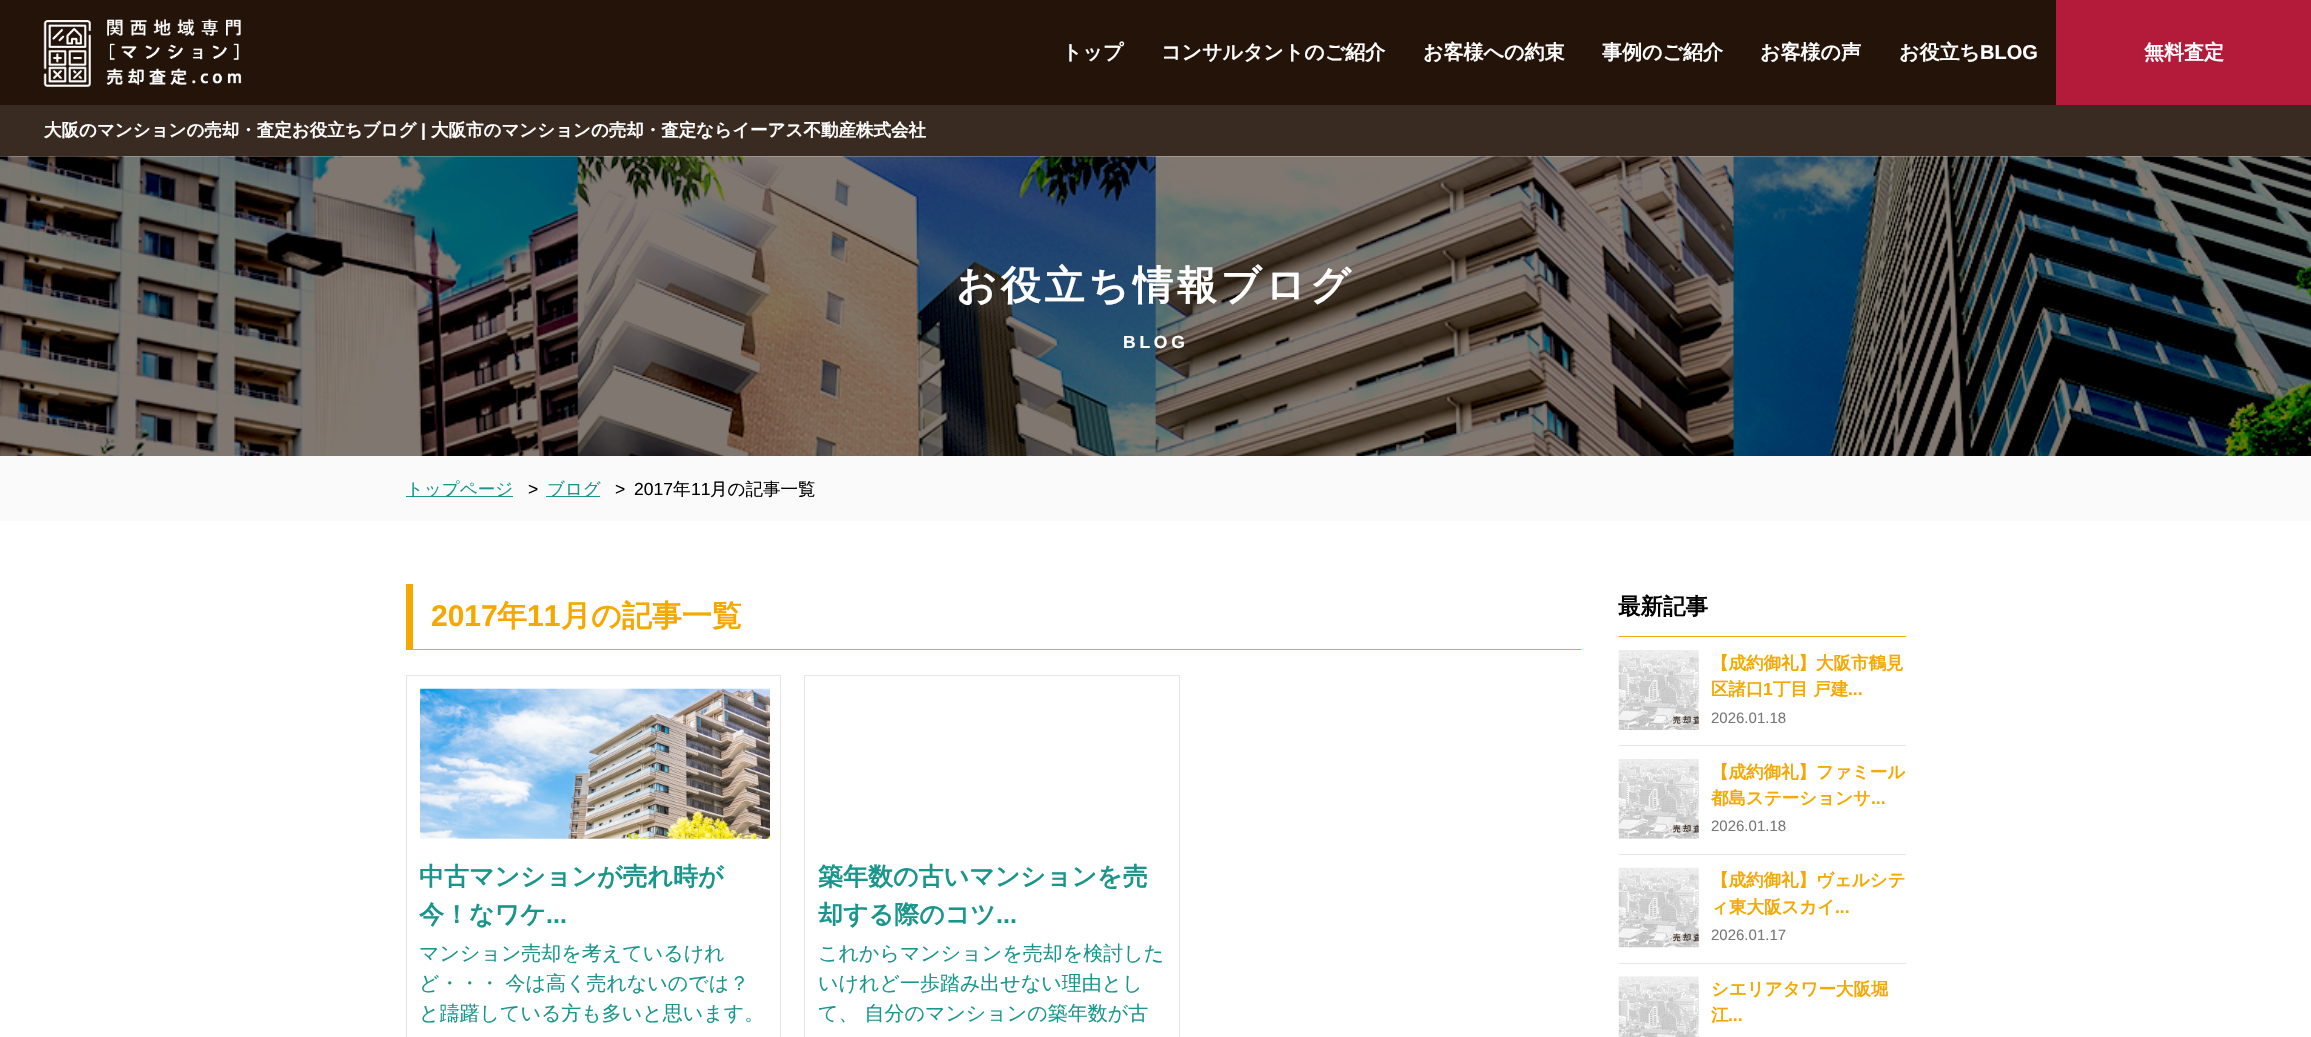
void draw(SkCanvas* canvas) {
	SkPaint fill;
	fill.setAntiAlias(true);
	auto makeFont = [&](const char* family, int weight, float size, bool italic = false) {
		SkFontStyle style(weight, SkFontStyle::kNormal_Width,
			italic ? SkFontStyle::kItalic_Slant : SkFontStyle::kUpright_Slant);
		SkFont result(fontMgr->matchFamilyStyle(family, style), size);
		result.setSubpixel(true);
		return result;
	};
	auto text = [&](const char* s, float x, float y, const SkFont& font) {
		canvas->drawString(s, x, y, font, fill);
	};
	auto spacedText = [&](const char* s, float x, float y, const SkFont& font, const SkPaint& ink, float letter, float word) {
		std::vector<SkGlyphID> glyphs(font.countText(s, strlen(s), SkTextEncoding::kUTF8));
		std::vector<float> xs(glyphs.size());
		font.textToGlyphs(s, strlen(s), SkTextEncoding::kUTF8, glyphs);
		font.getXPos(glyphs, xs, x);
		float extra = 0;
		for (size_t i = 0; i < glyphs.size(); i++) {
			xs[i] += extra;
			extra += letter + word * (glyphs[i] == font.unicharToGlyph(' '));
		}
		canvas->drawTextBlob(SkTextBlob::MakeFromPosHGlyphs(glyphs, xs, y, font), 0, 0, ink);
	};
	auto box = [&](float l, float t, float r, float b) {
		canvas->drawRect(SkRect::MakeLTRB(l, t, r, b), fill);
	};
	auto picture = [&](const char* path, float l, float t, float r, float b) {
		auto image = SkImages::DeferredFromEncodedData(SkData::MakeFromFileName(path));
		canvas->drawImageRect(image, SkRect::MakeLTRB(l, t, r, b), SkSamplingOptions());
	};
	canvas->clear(0xFFFFFFFF);
	fill.setColor(0xFF231308);
	box(0, 0, 2056, 105);
	picture("image0.png", 43, 18, 242, 87);
	fill.setColor(0xFFB41B3A);
	box(2056, 0, 2311, 105);
	fill.setColor(0xFF392B21);
	box(0, 105, 2311, 156);
	picture("image1.png", 0, 156, 2311, 456);
	fill.setColor(0xFFFAFAFA);
	box(0, 456, 2311, 521);
	fill.setColor(0xFF19968C);
	box(406, 496, 513, 497);
	box(546, 496, 600, 497);
	fill.setColor(0xFFF5A800);
	box(406, 649, 1581, 650);
	box(406, 584, 413, 650);
	fill.setStyle(SkPaint::kStroke_Style);
	fill.setStrokeWidth(1);
	fill.setColor(0xFFE5E5E5);
	canvas->drawRect(SkRect::MakeLTRB(406.5f, 675.5f, 780.5f, 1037.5f), fill);
	picture("image2.png", 420, 688, 770, 839);
	canvas->drawRect(SkRect::MakeLTRB(804.5f, 675.5f, 1179.5f, 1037.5f), fill);
	fill.setStyle(SkPaint::kFill_Style);
	fill.setColor(0xFFF5A800);
	box(1619, 636, 1906, 637);
	fill.setColor(0xFFE5E5E5);
	box(1619, 745, 1906, 746);
	picture("image3.png", 1618, 650, 1699, 730);
	box(1619, 854, 1906, 855);
	picture("image4.png", 1618, 759, 1699, 839);
	box(1619, 963, 1906, 964);
	picture("image5.png", 1618, 867, 1699, 948);
	picture("image6.png", 1618, 976, 1699, 1037);
	auto font1 = makeFont("WenQuanYi Zen Hei", 700, 20);
	fill.setColor(0xFFFFFFFF);
	text("トップ", 1062, 59, font1);
	text("コンサルタントのご紹介", 1161, 59, font1);
	text("お客様への約束", 1423, 59, font1);
	text("事例のご紹介", 1602, 59, font1);
	text("お客様の声", 1760, 59, font1);
	text("お役立ち", 1899, 59, font1);
	auto font2 = makeFont("Liberation Sans", 700, 20);
	text("BLOG", 1980, 59, font2);
	text("無料査定", 2144, 59, font1);
	auto font3 = makeFont("WenQuanYi Zen Hei", 700, 17.5f);
	text("大阪のマンションの売却・査定お役立ちブログ", 44, 136, font3);
	auto font4 = makeFont("Liberation Sans", 700, 17.5f);
	text("|", 421, 136, font4);
	text("大阪市のマンションの売却・査定ならイーアス不動産株式会社", 431, 136, font3);
	auto font5 = makeFont("WenQuanYi Zen Hei", 700, 40);
	spacedText("お役立ち情報ブログ", 956, 299, font5, fill, 3.75f, 0);
	spacedText("BLOG", 1123, 348, font4, fill, 3.75f, 0);
	auto font6 = makeFont("WenQuanYi Zen Hei", 500, 17.5f);
	fill.setColor(0xFF19968C);
	text("トップページ", 406, 495, font6);
	auto font7 = makeFont("Liberation Sans", 400, 17.5f);
	fill.setColor(0xFF000000);
	text(">", 528, 495, font7);
	fill.setColor(0xFF19968C);
	text("ブログ", 547, 495, font6);
	fill.setColor(0xFF000000);
	text(">", 615, 495, font7);
	text("2017", 634, 495, font7);
	text("年", 673, 495, font6);
	text("11", 691, 495, font7);
	text("月の記事一覧", 710, 495, font6);
	auto font8 = makeFont("Liberation Sans", 700, 30);
	fill.setColor(0xFFF5A800);
	text("2017", 431, 626, font8);
	auto font9 = makeFont("WenQuanYi Zen Hei", 700, 30);
	text("年", 497, 626, font9);
	text("11", 527, 626, font8);
	text("月の記事一覧", 561, 626, font9);
	auto font10 = makeFont("WenQuanYi Zen Hei", 700, 25);
	fill.setColor(0xFF19968C);
	text("中古マンションが売れ時が", 419, 885, font10);
	text("今！なワケ", 419, 923, font10);
	auto font11 = makeFont("Liberation Sans", 700, 25);
	text("...", 546, 923, font11);
	auto font12 = makeFont("WenQuanYi Zen Hei", 500, 20);
	text("マンション売却を考えているけれ", 419, 960, font12);
	text("ど・・・ 今は高く売れないのでは？", 419, 990, font12);
	text("と躊躇している方も多いと思います。", 419, 1020, font12);
	text("築年数の古いマンションを売", 818, 885, font10);
	text("却する際のコツ", 818, 923, font10);
	text("...", 996, 923, font11);
	text("これからマンションを売却を検討した", 818, 960, font12);
	text("いけれど一歩踏み出せない理由とし", 818, 990, font12);
	text("て、 自分のマンションの築年数が古", 818, 1020, font12);
	auto font13 = makeFont("WenQuanYi Zen Hei", 700, 22.5f);
	fill.setColor(0xFF000000);
	text("最新記事", 1618, 614, font13);
	fill.setColor(0xFFF5A800);
	text("【成約御礼】大阪市鶴見", 1711, 669, font3);
	text("区諸口", 1711, 695, font3);
	text("1", 1763, 695, font4);
	text("丁目 戸建", 1773, 695, font3);
	text("...", 1848, 695, font4);
	auto font14 = makeFont("Liberation Sans", 400, 15);
	fill.setColor(0xFF777777);
	text("2026.01.18", 1711, 723, font14);
	fill.setColor(0xFFF5A800);
	text("【成約御礼】ファミール", 1711, 778, font3);
	text("都島ステーションサ", 1711, 804, font3);
	text("...", 1871, 804, font4);
	fill.setColor(0xFF777777);
	text("2026.01.18", 1711, 831, font14);
	fill.setColor(0xFFF5A800);
	text("【成約御礼】ヴェルシテ", 1711, 886, font3);
	text("ィ東大阪スカイ", 1711, 913, font3);
	text("...", 1835, 913, font4);
	fill.setColor(0xFF777777);
	text("2026.01.17", 1711, 940, font14);
	fill.setColor(0xFFF5A800);
	text("シエリアタワー大阪堀", 1711, 995, font3);
	text("江", 1711, 1021, font3);
	text("...", 1728, 1021, font4);
}
